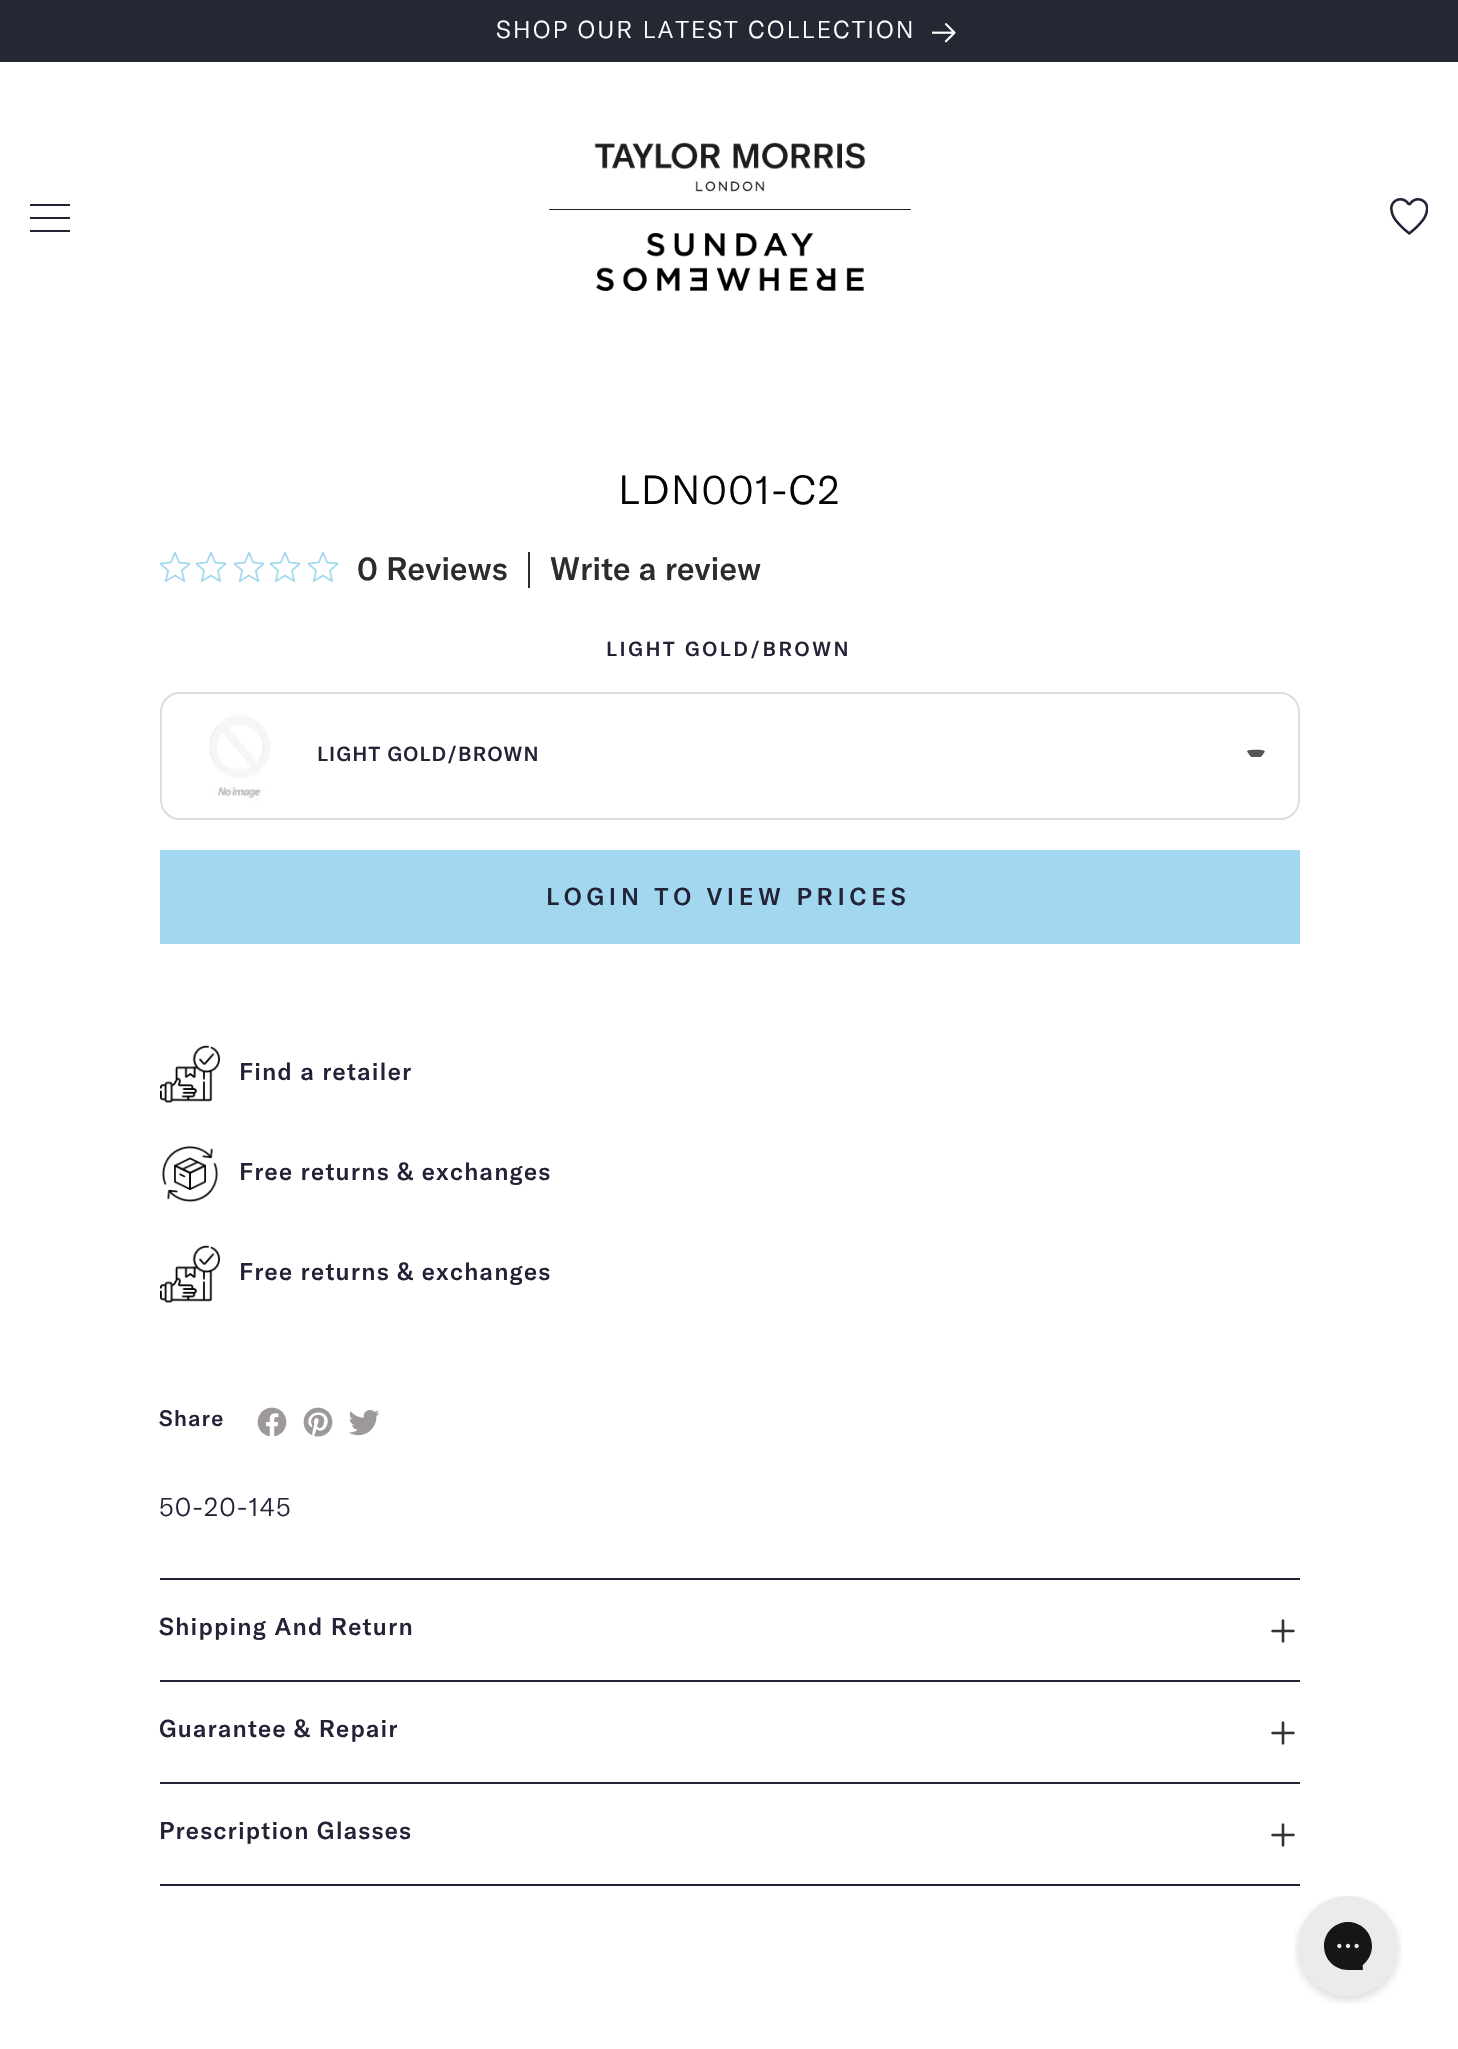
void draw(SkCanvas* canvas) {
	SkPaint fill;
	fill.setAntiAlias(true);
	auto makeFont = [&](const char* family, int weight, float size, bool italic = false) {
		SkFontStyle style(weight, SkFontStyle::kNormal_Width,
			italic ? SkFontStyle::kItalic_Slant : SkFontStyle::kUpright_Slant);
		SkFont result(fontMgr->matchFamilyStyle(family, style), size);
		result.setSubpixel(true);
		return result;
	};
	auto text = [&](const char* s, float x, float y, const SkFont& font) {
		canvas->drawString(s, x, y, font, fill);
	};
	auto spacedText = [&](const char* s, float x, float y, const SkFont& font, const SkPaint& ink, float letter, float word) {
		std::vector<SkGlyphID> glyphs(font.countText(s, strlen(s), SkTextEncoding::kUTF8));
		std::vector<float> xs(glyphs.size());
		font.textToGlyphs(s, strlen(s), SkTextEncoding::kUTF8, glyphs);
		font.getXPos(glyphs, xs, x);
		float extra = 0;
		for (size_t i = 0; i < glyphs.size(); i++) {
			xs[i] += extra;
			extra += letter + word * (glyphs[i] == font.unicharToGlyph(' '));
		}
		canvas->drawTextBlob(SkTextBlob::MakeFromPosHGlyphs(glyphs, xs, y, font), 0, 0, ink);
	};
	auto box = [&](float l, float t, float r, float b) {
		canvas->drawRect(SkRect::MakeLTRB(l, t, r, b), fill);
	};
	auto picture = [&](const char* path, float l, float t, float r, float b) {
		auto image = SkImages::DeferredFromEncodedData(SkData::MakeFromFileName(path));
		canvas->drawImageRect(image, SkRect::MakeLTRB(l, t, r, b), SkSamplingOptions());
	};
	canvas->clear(0xFFFFFFFF);
	fill.setColor(0xFF242833);
	box(0, 0, 1458, 62);
	picture("image0.png", 932, 23, 956, 43);
	fill.setColor(0xFF232237);
	canvas->drawPath(SkPathBuilder().moveTo(30, 232).lineTo(30, 230).lineTo(70, 230).lineTo(70, 232).close().moveTo(30, 217).lineTo(70, 217).lineTo(70, 219).lineTo(30, 219).close().moveTo(30, 204).lineTo(70, 204).lineTo(70, 206).lineTo(30, 206).close().detach(), fill);
	picture("image1.png", 549, 142, 911, 291);
	picture("image2.png", 1390, 198, 1428, 235);
	picture("image3.png", 160, 552, 190, 582);
	picture("image3.png", 196, 552, 226, 582);
	picture("image3.png", 234, 552, 264, 582);
	picture("image3.png", 270, 552, 300, 582);
	picture("image3.png", 308, 552, 338, 582);
	fill.setColor(0xFF2C2C2C);
	box(528, 552, 530, 588);
	fill.setStyle(SkPaint::kStroke_Style);
	fill.setStrokeWidth(2);
	fill.setColor(0xFFDDDDDD);
	canvas->drawRoundRect(SkRect::MakeLTRB(161, 693, 1299, 819), 19, 19, fill);
	picture("image4.png", 192, 708, 288, 804);
	fill.setStyle(SkPaint::kFill_Style);
	fill.setColor(0xFF555555);
	canvas->drawPath(SkPathBuilder().moveTo(1250, 750).cubicTo(1253, 750, 1263, 749, 1265, 751.5f).lineTo(1261, 757).lineTo(1251, 757).lineTo(1247, 751.5f).cubicTo(1247.5f, 750.5f, 1248.5f, 750, 1250, 750).close().detach(), fill);
	fill.setColor(0xFFA1D7EF);
	box(160, 850, 1300, 944);
	picture("image5.png", 160, 1045, 220, 1103);
	picture("image6.png", 162, 1145, 219, 1203);
	picture("image5.png", 160, 1245, 220, 1303);
	picture("image7.png", 257, 1407, 287, 1437);
	picture("image8.png", 303, 1407, 333, 1437);
	picture("image9.png", 348, 1410, 380, 1436);
	fill.setColor(0xFF232237);
	box(160, 1578, 1300, 1580);
	box(160, 1680, 1300, 1682);
	picture("image10.png", 1271, 1619, 1295, 1643);
	box(160, 1782, 1300, 1784);
	picture("image10.png", 1271, 1721, 1295, 1745);
	box(160, 1884, 1300, 1886);
	picture("image10.png", 1271, 1823, 1295, 1847);
	picture("image11.png", 1294, 1896, 1402, 2004);
	auto font1 = makeFont("GT America", 300, 24);
	fill.setColor(0xFFFFFFFF);
	spacedText("SHOP OUR LATEST COLLECTION", 496, 38, font1, fill, 2, 0);
	auto font2 = makeFont("GT America", 300, 40);
	fill.setColor(0xFF040303);
	spacedText("LDN001-C2", 618, 504, font2, fill, 1.2f, 0);
	auto font3 = makeFont("GT America", 500, 32);
	fill.setColor(0xFF2C2C2C);
	text("0 Reviews", 357, 580, font3);
	text("Write a review", 550, 580, font3);
	auto font4 = makeFont("GT America", 500, 20);
	fill.setColor(0xFF232237);
	spacedText("LIGHT GOLD/BROWN", 606, 656, font4, fill, 2.6f, 0);
	spacedText("LIGHT GOLD/BROWN", 317, 761, font4, fill, 1.2f, 0);
	auto font5 = makeFont("GT America", 500, 24);
	spacedText("LOGIN TO VIEW PRICES", 546, 905, font5, fill, 4.75f, 0);
	spacedText("Find a retailer", 239, 1080, font5, fill, 1.2f, 0);
	spacedText("Free returns & exchanges", 239, 1180, font5, fill, 1.2f, 0);
	spacedText("Free returns & exchanges", 239, 1280, font5, fill, 1.2f, 0);
	auto font6 = makeFont("GT America", 500, 22);
	spacedText("Share", 159, 1426, font6, fill, 1.2f, 0);
	auto font7 = makeFont("GT America", 300, 26);
	spacedText("50-20-145", 159, 1516, font7, fill, 1.2f, 0);
	spacedText("Shipping And Return", 159, 1635, font5, fill, 1.2f, 0);
	spacedText("Guarantee & Repair", 159, 1737, font5, fill, 1.2f, 0);
	spacedText("Prescription Glasses", 159, 1839, font5, fill, 1.2f, 0);
}
